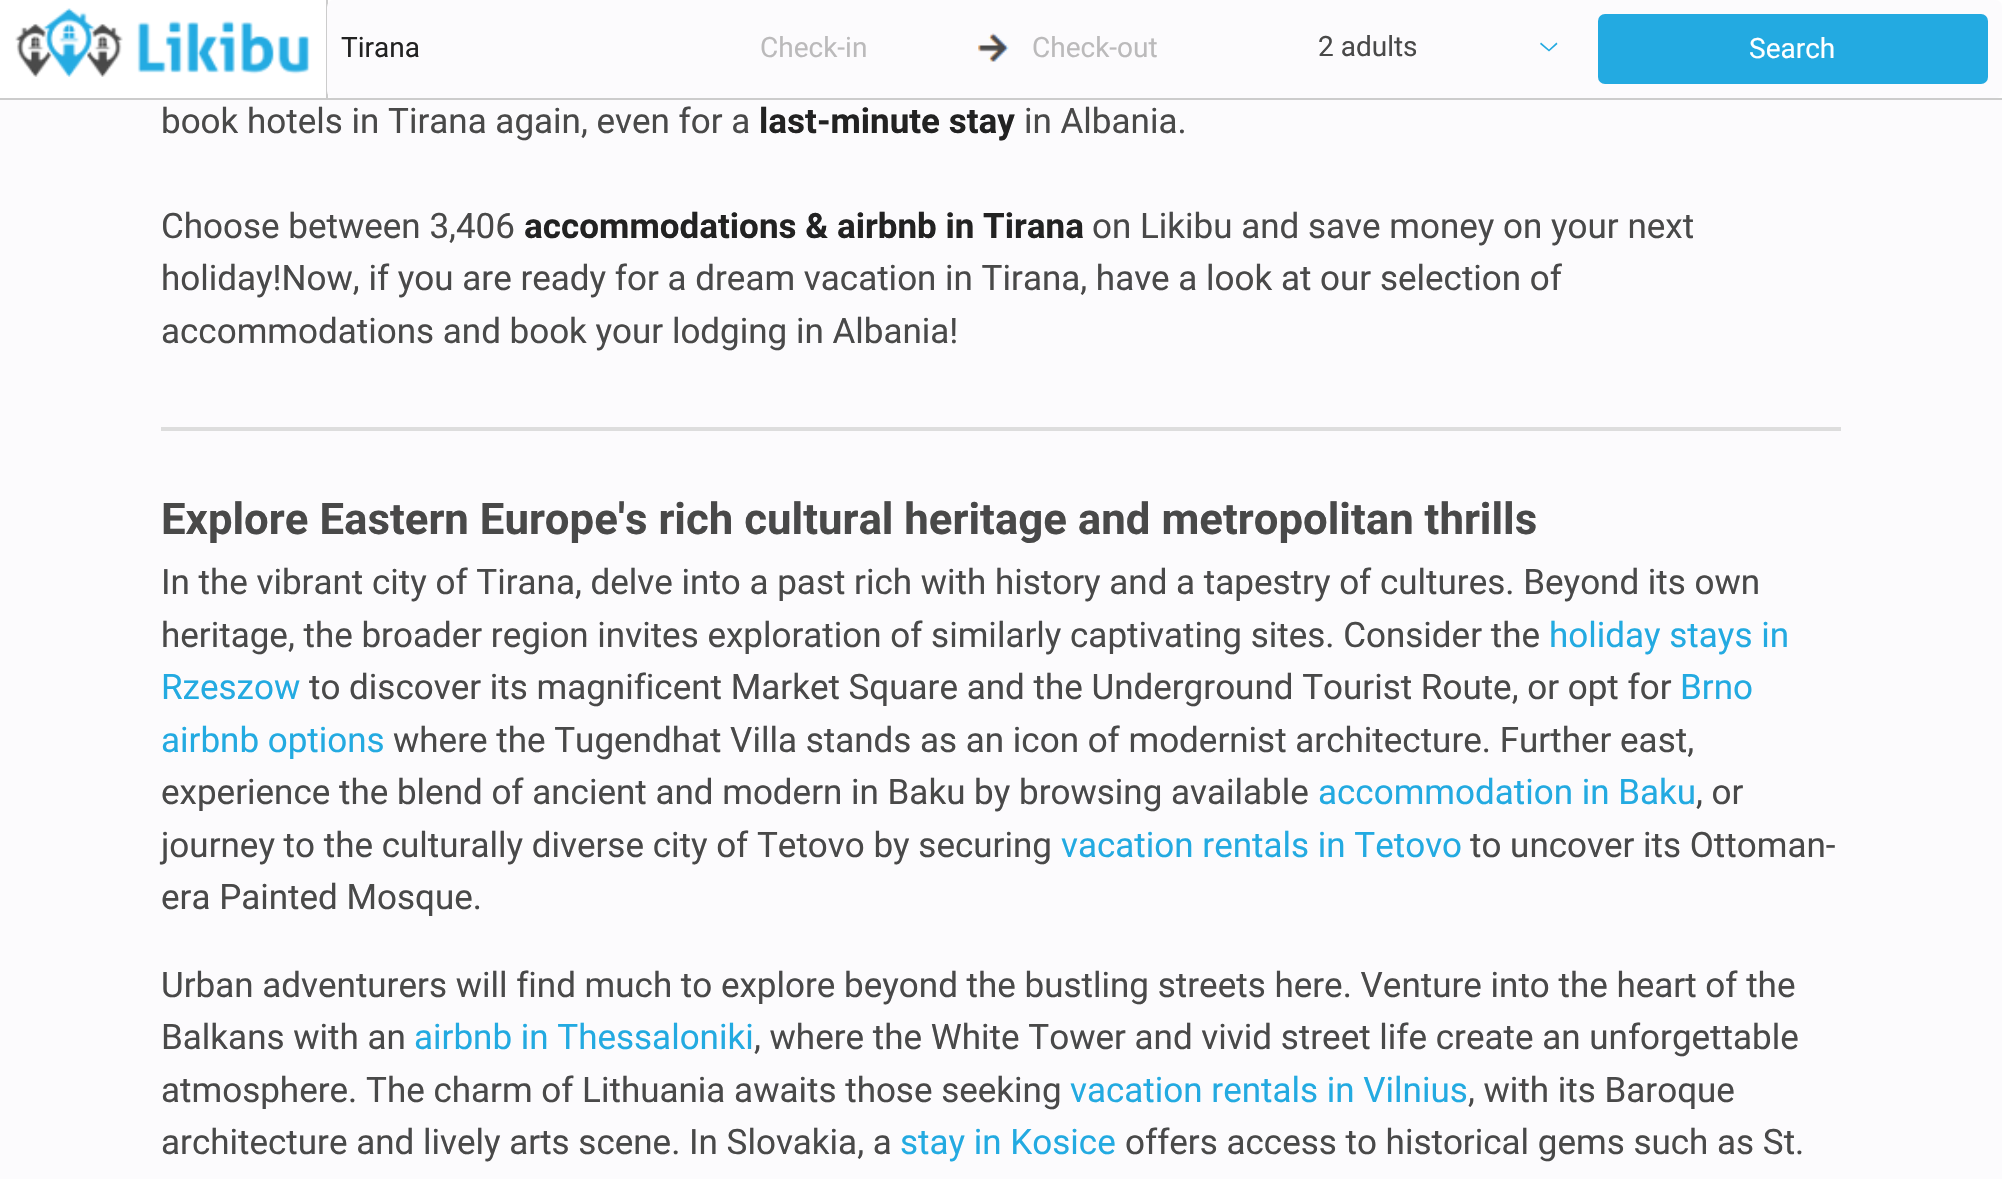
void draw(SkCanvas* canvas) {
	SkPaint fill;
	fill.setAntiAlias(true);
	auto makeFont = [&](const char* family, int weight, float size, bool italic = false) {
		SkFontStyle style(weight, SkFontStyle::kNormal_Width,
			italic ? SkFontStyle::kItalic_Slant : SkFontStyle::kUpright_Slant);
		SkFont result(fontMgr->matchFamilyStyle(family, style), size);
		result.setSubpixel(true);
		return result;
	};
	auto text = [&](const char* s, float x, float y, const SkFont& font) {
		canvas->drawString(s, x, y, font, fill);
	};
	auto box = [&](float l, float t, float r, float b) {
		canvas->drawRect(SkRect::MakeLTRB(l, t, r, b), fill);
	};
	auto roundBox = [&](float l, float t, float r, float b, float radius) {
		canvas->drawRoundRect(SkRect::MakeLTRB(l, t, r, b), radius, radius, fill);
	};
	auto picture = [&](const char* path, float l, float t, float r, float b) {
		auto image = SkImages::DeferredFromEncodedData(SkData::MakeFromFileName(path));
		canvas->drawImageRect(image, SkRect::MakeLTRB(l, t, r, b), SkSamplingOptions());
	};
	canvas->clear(0xFFFCFBFD);
	fill.setColor(0xFFFFFFFF);
	box(0, 0, 2002, 98);
	fill.setColor(0xFFCCCCCC);
	box(0, 98, 2002, 100);
	box(326, 0, 328, 98);
	picture("image0.png", 15, 8, 310, 77);
	fill.setColor(0xFFFCFBFD);
	roundBox(327, 0, 2002, 98, 7);
	picture("image1.png", 978, 33, 1009, 62);
	fill.setColor(0xFF23AAE1);
	canvas->drawPath(SkPathBuilder().moveTo(1549, 51.5f).lineTo(1540, 44).lineTo(1541, 42.5f).lineTo(1549, 49.5f).lineTo(1556.5f, 42.5f).lineTo(1557.5f, 44).close().detach(), fill);
	roundBox(1598, 14, 1988, 84, 7);
	fill.setColor(0xFFDDDDDD);
	box(161, 427, 1841, 431);
	auto font1 = makeFont("Roboto", 400, 28);
	fill.setColor(0xFF222222);
	text("Tirana", 341, 57, font1);
	fill.setColor(0xFFBBBABB);
	text("Check-in", 760, 57, font1);
	text("Check-out", 1032, 57, font1);
	fill.setColor(0xFF494949);
	text("2 adults", 1318, 56, font1);
	fill.setColor(0xFFFFFFFF);
	text("Search", 1749, 58, font1);
	auto font2 = makeFont("Roboto", 400, 35);
	fill.setColor(0xFF494949);
	text("book hotels in Tirana again, even for a", 161, 133, font2);
	auto font3 = makeFont("Roboto", 700, 35);
	fill.setColor(0xFF222222);
	text("last-minute stay", 759, 133, font3);
	fill.setColor(0xFF494949);
	text("in Albania.", 1024, 133, font2);
	text("Choose between 3,406", 161, 238, font2);
	fill.setColor(0xFF222222);
	text("accommodations & airbnb in Tirana", 524, 238, font3);
	fill.setColor(0xFF494949);
	text("on Likibu and save money on your next", 1092, 238, font2);
	text("holiday!Now, if you are ready for a dream vacation in Tirana, have a look at our selection of", 161, 290, font2);
	text("accommodations and book your lodging in Albania!", 161, 343, font2);
	auto font4 = makeFont("Roboto", 700, 43.75f);
	text("Explore Eastern Europe's rich cultural heritage and metropolitan thrills", 161, 534, font4);
	text("In the vibrant city of Tirana, delve into a past rich with history and a tapestry of cultures. Beyond its own", 161, 594, font2);
	text("heritage, the broader region invites exploration of similarly captivating sites. Consider the", 161, 647, font2);
	fill.setColor(0xFF23AAE1);
	text("holiday stays in", 1549, 647, font2);
	text("Rzeszow", 161, 699, font2);
	fill.setColor(0xFF494949);
	text("to discover its magnificent Market Square and the Underground Tourist Route, or opt for", 309, 699, font2);
	fill.setColor(0xFF23AAE1);
	text("Brno", 1680, 699, font2);
	text("airbnb options", 161, 752, font2);
	fill.setColor(0xFF494949);
	text("where the Tugendhat Villa stands as an icon of modernist architecture. Further east,", 393, 752, font2);
	text("experience the blend of ancient and modern in Baku by browsing available", 161, 804, font2);
	fill.setColor(0xFF23AAE1);
	text("accommodation in Baku", 1318, 804, font2);
	fill.setColor(0xFF494949);
	text(", or", 1696, 804, font2);
	text("journey to the culturally diverse city of Tetovo by securing", 161, 857, font2);
	fill.setColor(0xFF23AAE1);
	text("vacation rentals in Tetovo", 1061, 857, font2);
	fill.setColor(0xFF494949);
	text("to uncover its Ottoman-", 1470, 857, font2);
	text("era Painted Mosque.", 161, 909, font2);
	text("Urban adventurers will find much to explore beyond the bustling streets here. Venture into the heart of the", 161, 997, font2);
	text("Balkans with an", 161, 1049, font2);
	fill.setColor(0xFF23AAE1);
	text("airbnb in Thessaloniki", 414, 1049, font2);
	fill.setColor(0xFF494949);
	text(", where the White Tower and vivid street life create an unforgettable", 754, 1049, font2);
	text("atmosphere. The charm of Lithuania awaits those seeking", 161, 1102, font2);
	fill.setColor(0xFF23AAE1);
	text("vacation rentals in Vilnius", 1070, 1102, font2);
	fill.setColor(0xFF494949);
	text(", with its Baroque", 1468, 1102, font2);
	text("architecture and lively arts scene. In Slovakia, a", 161, 1154, font2);
	fill.setColor(0xFF23AAE1);
	text("stay in Kosice", 900, 1154, font2);
	fill.setColor(0xFF494949);
	text("offers access to historical gems such as St.", 1125, 1154, font2);
}
